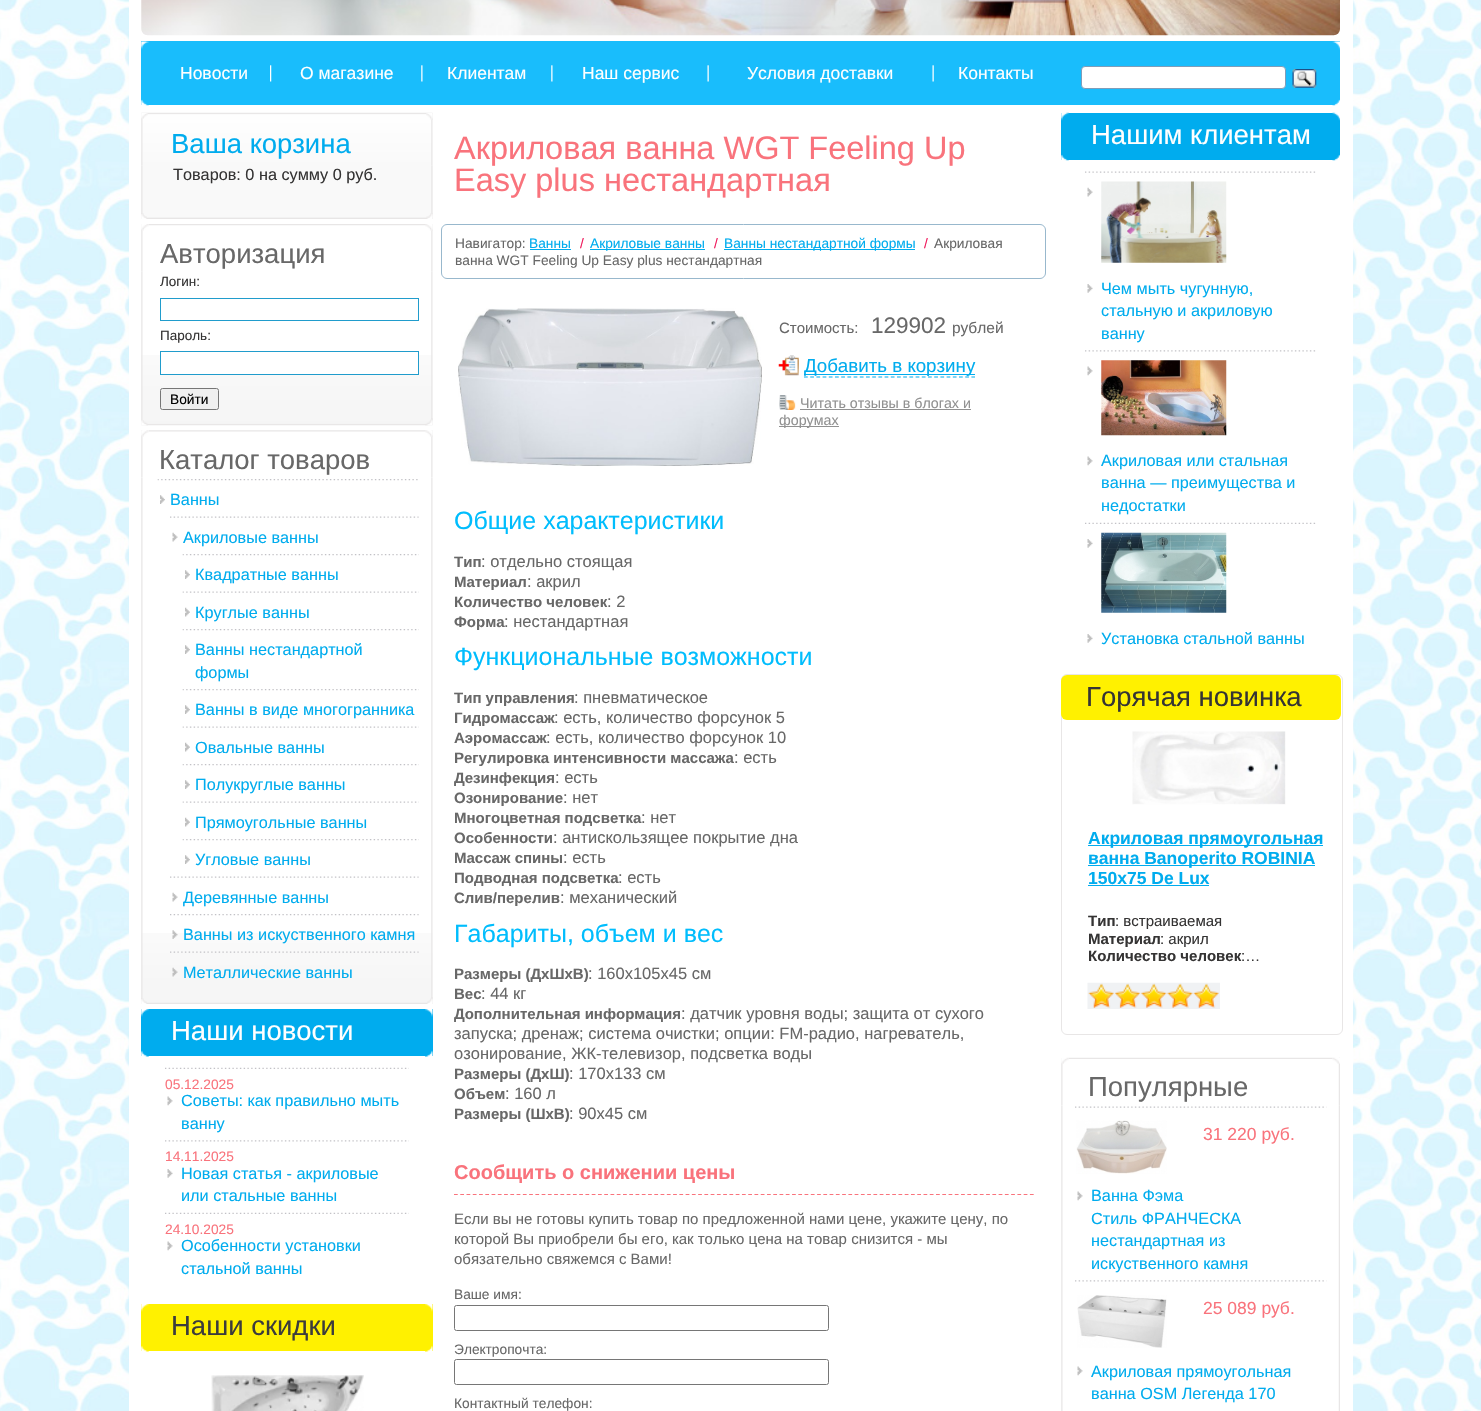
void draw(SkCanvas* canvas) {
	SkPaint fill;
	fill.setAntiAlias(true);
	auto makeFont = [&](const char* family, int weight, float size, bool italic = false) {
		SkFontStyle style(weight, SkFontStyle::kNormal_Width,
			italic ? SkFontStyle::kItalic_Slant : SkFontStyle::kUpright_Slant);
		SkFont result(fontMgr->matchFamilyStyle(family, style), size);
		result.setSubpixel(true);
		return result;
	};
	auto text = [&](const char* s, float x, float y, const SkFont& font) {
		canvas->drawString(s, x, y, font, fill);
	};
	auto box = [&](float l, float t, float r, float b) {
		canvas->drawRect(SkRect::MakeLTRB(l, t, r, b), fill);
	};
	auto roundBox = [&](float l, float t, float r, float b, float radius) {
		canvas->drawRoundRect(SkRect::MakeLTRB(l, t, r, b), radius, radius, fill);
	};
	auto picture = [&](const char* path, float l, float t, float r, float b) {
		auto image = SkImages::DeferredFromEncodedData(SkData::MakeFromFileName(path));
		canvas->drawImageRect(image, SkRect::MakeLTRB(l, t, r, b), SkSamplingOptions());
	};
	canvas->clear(0xFFFFFFFF);
	picture("image0.png", 0, 0, 1481, 1411);
	fill.setColor(0xFFFFFFFF);
	box(129, 0, 1353, 1411);
	picture("image1.png", 141, 0, 1340, 36);
	fill.setColor(0xFF19BDFC);
	box(141, 41, 1340, 105);
	picture("image2.png", 141, 41, 149, 106);
	picture("image3.png", 270, 65, 272, 82);
	picture("image4.png", 421, 65, 423, 82);
	picture("image4.png", 551, 65, 553, 82);
	picture("image5.png", 707, 65, 709, 82);
	picture("image5.png", 932, 65, 934, 82);
	picture("image6.png", 1332, 41, 1340, 106);
	fill.setColor(0xFFFFFFFF);
	canvas->drawRoundRect(SkRect::MakeLTRB(1081.5f, 66.5f, 1285.5f, 88.5f), 3.5f, 3.5f, fill);
	fill.setStyle(SkPaint::kStroke_Style);
	fill.setStrokeWidth(1);
	fill.setColor(0xFF7F9DB9);
	canvas->drawRoundRect(SkRect::MakeLTRB(1081.5f, 66.5f, 1285.5f, 88.5f), 3.5f, 3.5f, fill);
	picture("image7.png", 1292, 69, 1317, 88);
	picture("image8.png", 141, 112, 433, 165);
	picture("image9.png", 141, 113, 143, 165);
	picture("image10.png", 141, 113, 148, 119);
	picture("image11.png", 431, 113, 433, 165);
	picture("image12.png", 426, 113, 433, 120);
	fill.setStyle(SkPaint::kFill_Style);
	fill.setColor(0xFFF9F9F9);
	box(141, 165, 433, 219);
	picture("image13.png", 141, 217, 433, 219);
	picture("image14.png", 141, 165, 143, 218);
	picture("image15.png", 431, 165, 433, 219);
	picture("image16.png", 426, 213, 433, 219);
	picture("image17.png", 141, 213, 147, 219);
	picture("image18.png", 141, 224, 143, 272);
	picture("image20.png", 148, 224, 425, 226);
	picture("image19.png", 141, 224, 149, 231);
	picture("image18.png", 431, 224, 433, 272);
	picture("image21.png", 425, 224, 433, 231);
	picture("image22.png", 141, 355, 433, 426);
	picture("image23.png", 141, 271, 143, 425);
	picture("image24.png", 431, 271, 433, 425);
	picture("image25.png", 425, 418, 433, 426);
	picture("image26.png", 141, 420, 148, 426);
	fill.setStyle(SkPaint::kStroke_Style);
	fill.setColor(0xFF209CCC);
	canvas->drawRect(SkRect::MakeLTRB(160.5f, 298.5f, 418.5f, 320.5f), fill);
	fill.setStyle(SkPaint::kFill_Style);
	fill.setColor(0xFFFFFFFF);
	box(161, 355, 418, 374);
	fill.setStyle(SkPaint::kStroke_Style);
	fill.setColor(0xFF209CCC);
	canvas->drawRect(SkRect::MakeLTRB(160.5f, 351.5f, 418.5f, 374.5f), fill);
	fill.setStyle(SkPaint::kFill_Style);
	fill.setColor(0xFFEFEFEF);
	canvas->drawRoundRect(SkRect::MakeLTRB(160.5f, 388.5f, 218.5f, 409.5f), 2, 2, fill);
	fill.setStyle(SkPaint::kStroke_Style);
	fill.setColor(0xFF767676);
	canvas->drawRoundRect(SkRect::MakeLTRB(160.5f, 388.5f, 218.5f, 409.5f), 2, 2, fill);
	picture("image27.png", 141, 430, 143, 478);
	picture("image28.png", 141, 430, 149, 437);
	picture("image29.png", 149, 430, 425, 432);
	picture("image27.png", 431, 430, 433, 478);
	picture("image30.png", 425, 430, 433, 437);
	picture("image31.png", 141, 933, 433, 1004);
	picture("image32.png", 141, 478, 143, 1004);
	picture("image33.png", 431, 478, 433, 1004);
	picture("image34.png", 427, 997, 433, 1004);
	picture("image35.png", 141, 998, 147, 1004);
	picture("image36.png", 157, 479, 418, 481);
	picture("image37.png", 160, 495, 165, 504);
	picture("image38.png", 170, 516, 419, 518);
	picture("image39.png", 172, 532, 178, 542);
	picture("image40.png", 182, 554, 419, 556);
	picture("image37.png", 185, 570, 190, 579);
	picture("image41.png", 182, 591, 419, 593);
	picture("image42.png", 185, 607, 190, 617);
	picture("image40.png", 182, 629, 419, 631);
	picture("image37.png", 185, 645, 190, 654);
	picture("image40.png", 182, 689, 419, 691);
	picture("image37.png", 185, 705, 190, 714);
	picture("image41.png", 182, 726, 419, 728);
	picture("image42.png", 185, 742, 190, 752);
	picture("image40.png", 182, 764, 419, 766);
	picture("image37.png", 185, 780, 190, 789);
	picture("image41.png", 182, 801, 419, 803);
	picture("image42.png", 185, 817, 190, 827);
	picture("image40.png", 182, 839, 419, 841);
	picture("image37.png", 185, 855, 190, 864);
	picture("image38.png", 170, 876, 419, 878);
	picture("image39.png", 172, 892, 178, 902);
	picture("image43.png", 170, 914, 419, 916);
	picture("image44.png", 172, 930, 178, 939);
	picture("image45.png", 170, 951, 419, 953);
	picture("image46.png", 172, 967, 178, 977);
	fill.setStyle(SkPaint::kFill_Style);
	fill.setColor(0xFF00ACEE);
	box(141, 1009, 433, 1056);
	picture("image47.png", 141, 1009, 149, 1017);
	picture("image48.png", 425, 1009, 433, 1017);
	picture("image49.png", 141, 1050, 149, 1057);
	picture("image50.png", 425, 1050, 433, 1057);
	picture("image51.png", 165, 1067, 409, 1069);
	picture("image52.png", 167, 1096, 173, 1106);
	picture("image53.png", 165, 1140, 409, 1142);
	picture("image54.png", 167, 1169, 173, 1178);
	picture("image51.png", 165, 1212, 409, 1214);
	picture("image52.png", 167, 1241, 173, 1251);
	fill.setColor(0xFFFFF100);
	box(141, 1304, 433, 1351);
	picture("image55.png", 141, 1304, 149, 1312);
	picture("image56.png", 425, 1304, 433, 1312);
	picture("image57.png", 141, 1345, 149, 1352);
	picture("image58.png", 425, 1345, 433, 1352);
	picture("image59.png", 211, 1375, 364, 1411);
	fill.setStyle(SkPaint::kStroke_Style);
	fill.setColor(0xFF98B8CD);
	canvas->drawRoundRect(SkRect::MakeLTRB(441.5f, 224.5f, 1045.5f, 278.5f), 5.5f, 5.5f, fill);
	fill.setStyle(SkPaint::kFill_Style);
	fill.setColor(0xFF00ACEE);
	box(530, 249, 571, 250);
	box(590, 249, 705, 250);
	box(724, 249, 915, 250);
	picture("image60.png", 458, 308, 762, 466);
	picture("image61.png", 778, 355, 799, 376);
	fill.setStyle(SkPaint::kStroke_Style);
	fill.setStrokeWidth(1.2f);
	fill.setPathEffect(SkDashPathEffect::Make({{3.75f, 2.45f}}, 0));
	canvas->drawPath(SkPathBuilder().moveTo(804, 377).lineTo(975, 377).detach(), fill);
	fill.setPathEffect(nullptr);
	fill.setStyle(SkPaint::kFill_Style);
	box(804, 374, 975, 375);
	picture("image62.png", 779, 395, 796, 410);
	fill.setColor(0xFF919191);
	box(800, 409, 971, 410);
	box(779, 426, 839, 427);
	fill.setStyle(SkPaint::kStroke_Style);
	fill.setColor(0xFFF9737C);
	fill.setPathEffect(SkDashPathEffect::Make({{3.75f, 2.51f}}, 0));
	canvas->drawPath(SkPathBuilder().moveTo(454, 1194.5f).lineTo(1034, 1194.5f).detach(), fill);
	fill.setPathEffect(nullptr);
	fill.setStrokeWidth(1);
	fill.setColor(0xFF767676);
	canvas->drawRoundRect(SkRect::MakeLTRB(454.5f, 1305.5f, 828.5f, 1330.5f), 2, 2, fill);
	canvas->drawRoundRect(SkRect::MakeLTRB(454.5f, 1359.5f, 828.5f, 1384.5f), 2, 2, fill);
	fill.setStyle(SkPaint::kFill_Style);
	fill.setColor(0xFF00ACEE);
	box(1061, 113, 1340, 160);
	picture("image63.png", 1061, 112, 1069, 121);
	picture("image64.png", 1332, 112, 1340, 121);
	picture("image65.png", 1061, 154, 1069, 161);
	picture("image66.png", 1332, 154, 1340, 161);
	picture("image67.png", 1085, 171, 1316, 173);
	picture("image39.png", 1087, 187, 1093, 197);
	picture("image68.png", 1101, 181, 1227, 263);
	picture("image54.png", 1087, 284, 1093, 293);
	picture("image69.png", 1085, 350, 1316, 352);
	picture("image52.png", 1087, 366, 1093, 376);
	picture("image70.png", 1101, 360, 1227, 436);
	picture("image52.png", 1087, 456, 1093, 466);
	picture("image71.png", 1085, 522, 1316, 524);
	picture("image54.png", 1087, 539, 1093, 548);
	picture("image72.png", 1101, 532, 1227, 613);
	picture("image54.png", 1087, 634, 1093, 643);
	fill.setStyle(SkPaint::kStroke_Style);
	fill.setColor(0xFFE8E6E6);
	canvas->drawRoundRect(SkRect::MakeLTRB(1061.5f, 674.5f, 1342.5f, 1034.5f), 5.5f, 5.5f, fill);
	fill.setStyle(SkPaint::kFill_Style);
	fill.setColor(0xFFFFF100);
	roundBox(1061, 675, 1341, 720, 6);
	picture("image73.png", 1132, 731, 1286, 805);
	fill.setColor(0xFF00ACEE);
	box(1088, 845, 1323, 846);
	box(1088, 865, 1315, 866);
	box(1088, 885, 1209, 886);
	picture("image74.png", 1087, 982, 1220, 1009);
	picture("image75.png", 1061, 1058, 1063, 1105);
	picture("image77.png", 1068, 1057, 1333, 1059);
	picture("image76.png", 1061, 1057, 1069, 1064);
	picture("image78.png", 1338, 1057, 1340, 1106);
	picture("image79.png", 1332, 1057, 1340, 1064);
	picture("image80.png", 1061, 1105, 1063, 1411);
	picture("image81.png", 1338, 1105, 1340, 1411);
	picture("image82.png", 1075, 1106, 1327, 1108);
	picture("image83.png", 1076, 1120, 1167, 1174);
	picture("image52.png", 1077, 1191, 1083, 1201);
	picture("image84.png", 1075, 1280, 1327, 1282);
	picture("image85.png", 1077, 1295, 1167, 1348);
	picture("image52.png", 1077, 1366, 1083, 1376);
	auto font1 = makeFont("Liberation Sans", 400, 17.5f);
	fill.setColor(0xFFFFFFFF);
	text("Новости", 180, 79, font1);
	text("О магазине", 300, 79, font1);
	text("Клиентам", 447, 79, font1);
	text("Наш сервис", 582, 79, font1);
	text("Условия доставки", 747, 79, font1);
	text("Контакты", 958, 79, font1);
	auto font2 = makeFont("Liberation Sans", 400, 27.5f);
	fill.setColor(0xFF00ACEE);
	text("Ваша корзина", 171, 153, font2);
	auto font3 = makeFont("Liberation Sans", 400, 16.25f);
	fill.setColor(0xFF353434);
	text("Товаров: 0 на сумму 0 руб.", 173, 180, font3);
	fill.setColor(0xFF686868);
	text("Авторизация", 160, 263, font2);
	auto font4 = makeFont("Liberation Sans", 400, 13.5f);
	fill.setColor(0xFF353434);
	text("Логин:", 160, 286, font4);
	text("Пароль:", 160, 340, font4);
	auto font5 = makeFont("Liberation Sans", 400, 13.75f);
	fill.setColor(0xFF000000);
	text("Войти", 170, 404, font5);
	fill.setColor(0xFF686868);
	text("Каталог товаров", 159, 469, font2);
	fill.setColor(0xFF00ACEE);
	text("Ванны", 170, 505, font3);
	text("Акриловые ванны", 183, 543, font3);
	text("Квадратные ванны", 195, 580, font3);
	text("Круглые ванны", 195, 618, font3);
	text("Ванны нестандартной", 195, 655, font3);
	text("формы", 195, 678, font3);
	text("Ванны в виде многогранника", 195, 715, font3);
	text("Овальные ванны", 195, 753, font3);
	text("Полукруглые ванны", 195, 790, font3);
	text("Прямоугольные ванны", 195, 828, font3);
	text("Угловые ванны", 195, 865, font3);
	text("Деревянные ванны", 183, 903, font3);
	text("Ванны из искуственного камня", 183, 940, font3);
	text("Металлические ванны", 183, 978, font3);
	fill.setColor(0xFFFFFFFF);
	text("Наши новости", 171, 1040, font2);
	fill.setColor(0xFFF9737C);
	text("05.12.2025", 165, 1089, font5);
	fill.setColor(0xFF00ACEE);
	text("Советы: как правильно мыть", 181, 1106, font3);
	text("ванну", 181, 1129, font3);
	fill.setColor(0xFFF9737C);
	text("14.11.2025", 165, 1161, font5);
	fill.setColor(0xFF00ACEE);
	text("Новая статья - акриловые", 181, 1179, font3);
	text("или стальные ванны", 181, 1201, font3);
	fill.setColor(0xFFF9737C);
	text("24.10.2025", 165, 1234, font5);
	fill.setColor(0xFF00ACEE);
	text("Особенности установки", 181, 1251, font3);
	text("стальной ванны", 181, 1274, font3);
	fill.setColor(0xFF3C3C3C);
	text("Наши скидки", 171, 1335, font2);
	auto font6 = makeFont("Liberation Sans", 400, 32.5f);
	fill.setColor(0xFFF9737C);
	text("Акриловая ванна WGT Feeling Up", 454, 159, font6);
	text("Easy plus нестандартная", 454, 191, font6);
	fill.setColor(0xFF686868);
	text("Навигатор:", 455, 248, font5);
	fill.setColor(0xFF00ACEE);
	text("Ванны", 529, 248, font5);
	fill.setColor(0xFFF01D5E);
	text("/", 580, 248, font5);
	fill.setColor(0xFF00ACEE);
	text("Акриловые ванны", 590, 248, font5);
	fill.setColor(0xFFF01D5E);
	text("/", 714, 248, font5);
	fill.setColor(0xFF00ACEE);
	text("Ванны нестандартной формы", 724, 248, font5);
	fill.setColor(0xFFF01D5E);
	text("/", 924, 248, font5);
	fill.setColor(0xFF686868);
	text("Акриловая", 934, 248, font5);
	text("ванна WGT Feeling Up Easy plus нестандартная", 455, 265, font5);
	auto font7 = makeFont("Liberation Sans", 400, 15);
	text("Стоимость:", 779, 333, font7);
	auto font8 = makeFont("Liberation Sans", 400, 22.5f);
	text("129902", 871, 333, font8);
	auto font9 = makeFont("Liberation Sans", 400, 15.5f);
	text("рублей", 952, 333, font9);
	auto font10 = makeFont("Liberation Sans", 400, 18.75f);
	fill.setColor(0xFF00ACEE);
	text("Добавить в корзину", 804, 372, font10);
	auto font11 = makeFont("Liberation Sans", 400, 14.25f);
	fill.setColor(0xFF919191);
	text("Читать отзывы в блогах и", 800, 408, font11);
	text("форумах", 779, 425, font11);
	auto font12 = makeFont("Liberation Sans", 400, 25);
	fill.setColor(0xFF00BDFD);
	text("Общие характеристики", 454, 529, font12);
	auto font13 = makeFont("Liberation Sans", 700, 15);
	fill.setColor(0xFF686868);
	text("Тип", 454, 567, font13);
	auto font14 = makeFont("Liberation Sans", 400, 16.5f);
	text(": отдельно стоящая", 481, 567, font14);
	text("Материал", 454, 587, font13);
	text(": акрил", 527, 587, font14);
	text("Количество человек", 454, 607, font13);
	text(": 2", 607, 607, font14);
	text("Форма", 454, 627, font13);
	text(": нестандартная", 504, 627, font14);
	fill.setColor(0xFF00BDFD);
	text("Функциональные возможности", 454, 665, font12);
	fill.setColor(0xFF686868);
	text("Тип управления", 454, 703, font13);
	text(": пневматическое", 574, 703, font14);
	text("Гидромассаж", 454, 723, font13);
	text(": есть, количество форсунок 5", 554, 723, font14);
	text("Аэромассаж", 454, 743, font13);
	text(": есть, количество форсунок 10", 546, 743, font14);
	text("Регулировка интенсивности массажа", 454, 763, font13);
	text(": есть", 734, 763, font14);
	text("Дезинфекция", 454, 783, font13);
	text(": есть", 555, 783, font14);
	text("Озонирование", 454, 803, font13);
	text(": нет", 563, 803, font14);
	text("Многоцветная подсветка", 454, 823, font13);
	text(": нет", 641, 823, font14);
	text("Особенности", 454, 843, font13);
	text(": антискользящее покрытие дна", 553, 843, font14);
	text("Массаж спины", 454, 863, font13);
	text(": есть", 563, 863, font14);
	text("Подводная подсветка", 454, 883, font13);
	text(": есть", 618, 883, font14);
	text("Слив/перелив", 454, 903, font13);
	text(": механический", 560, 903, font14);
	fill.setColor(0xFF00BDFD);
	text("Габариты, объем и вес", 454, 942, font12);
	fill.setColor(0xFF686868);
	text("Размеры (ДхШхВ)", 454, 979, font13);
	text(": 160х105х45 см", 588, 979, font14);
	text("Вес", 454, 999, font13);
	text(": 44 кг", 481, 999, font14);
	text("Дополнительная информация", 454, 1019, font13);
	text(": датчик уровня воды; защита от сухого", 681, 1019, font14);
	text("запуска; дренаж; система очистки; опции: FM-радио, нагреватель,", 454, 1039, font14);
	text("озонирование, ЖК-телевизор, подсветка воды", 454, 1059, font14);
	text("Размеры (ДхШ)", 454, 1079, font13);
	text(": 170х133 см", 569, 1079, font14);
	text("Объем", 454, 1099, font13);
	text(": 160 л", 505, 1099, font14);
	text("Размеры (ШхВ)", 454, 1119, font13);
	text(": 90х45 см", 569, 1119, font14);
	auto font15 = makeFont("Liberation Sans", 700, 20);
	fill.setColor(0xFFF9737C);
	text("Сообщить о снижении цены", 454, 1179, font15);
	fill.setColor(0xFF686868);
	text("Если вы не готовы купить товар по предложенной нами цене, укажите цену, по", 454, 1224, font7);
	text("которой Вы приобрели бы его, как только цена на товар снизится - мы", 454, 1244, font7);
	text("обязательно свяжемся с Вами!", 454, 1264, font7);
	text("Ваше имя:", 454, 1299, font5);
	text("Электропочта:", 454, 1354, font5);
	text("Контактный телефон:", 454, 1408, font5);
	fill.setColor(0xFFFFFFFF);
	text("Нашим клиентам", 1091, 144, font2);
	fill.setColor(0xFF00ACEE);
	text("Чем мыть чугунную,", 1101, 294, font3);
	text("стальную и акриловую", 1101, 316, font3);
	text("ванну", 1101, 339, font3);
	text("Акриловая или стальная", 1101, 466, font3);
	text("ванна — преимущества и", 1101, 488, font3);
	text("недостатки", 1101, 511, font3);
	text("Установка стальной ванны", 1101, 644, font3);
	fill.setColor(0xFF353434);
	text("Горячая новинка", 1086, 706, font2);
	auto font16 = makeFont("Liberation Sans", 700, 17.5f);
	fill.setColor(0xFF00ACEE);
	text("Акриловая прямоугольная", 1088, 844, font16);
	text("ванна Banoperito ROBINIA", 1088, 864, font16);
	text("150x75 De Lux", 1088, 884, font16);
	fill.setColor(0xFF353434);
	text("Тип", 1088, 926, font13);
	text(": встраиваемая", 1115, 926, font7);
	text("Материал", 1088, 944, font13);
	text(": акрил", 1160, 944, font7);
	text("Количество человек", 1088, 961, font13);
	text(":…", 1241, 961, font7);
	fill.setColor(0xFF686868);
	text("Популярные", 1088, 1096, font2);
	fill.setColor(0xFFF9737C);
	text("31 220 руб.", 1203, 1140, font1);
	fill.setColor(0xFF00ACEE);
	text("Ванна Фэма", 1091, 1201, font3);
	text("Стиль ФРАНЧЕСКА", 1091, 1224, font3);
	text("нестандартная из", 1091, 1246, font3);
	text("искуственного камня", 1091, 1269, font3);
	fill.setColor(0xFFF9737C);
	text("25 089 руб.", 1203, 1314, font1);
	fill.setColor(0xFF00ACEE);
	text("Акриловая прямоугольная", 1091, 1377, font3);
	text("ванна OSM Легенда 170", 1091, 1399, font3);
}
